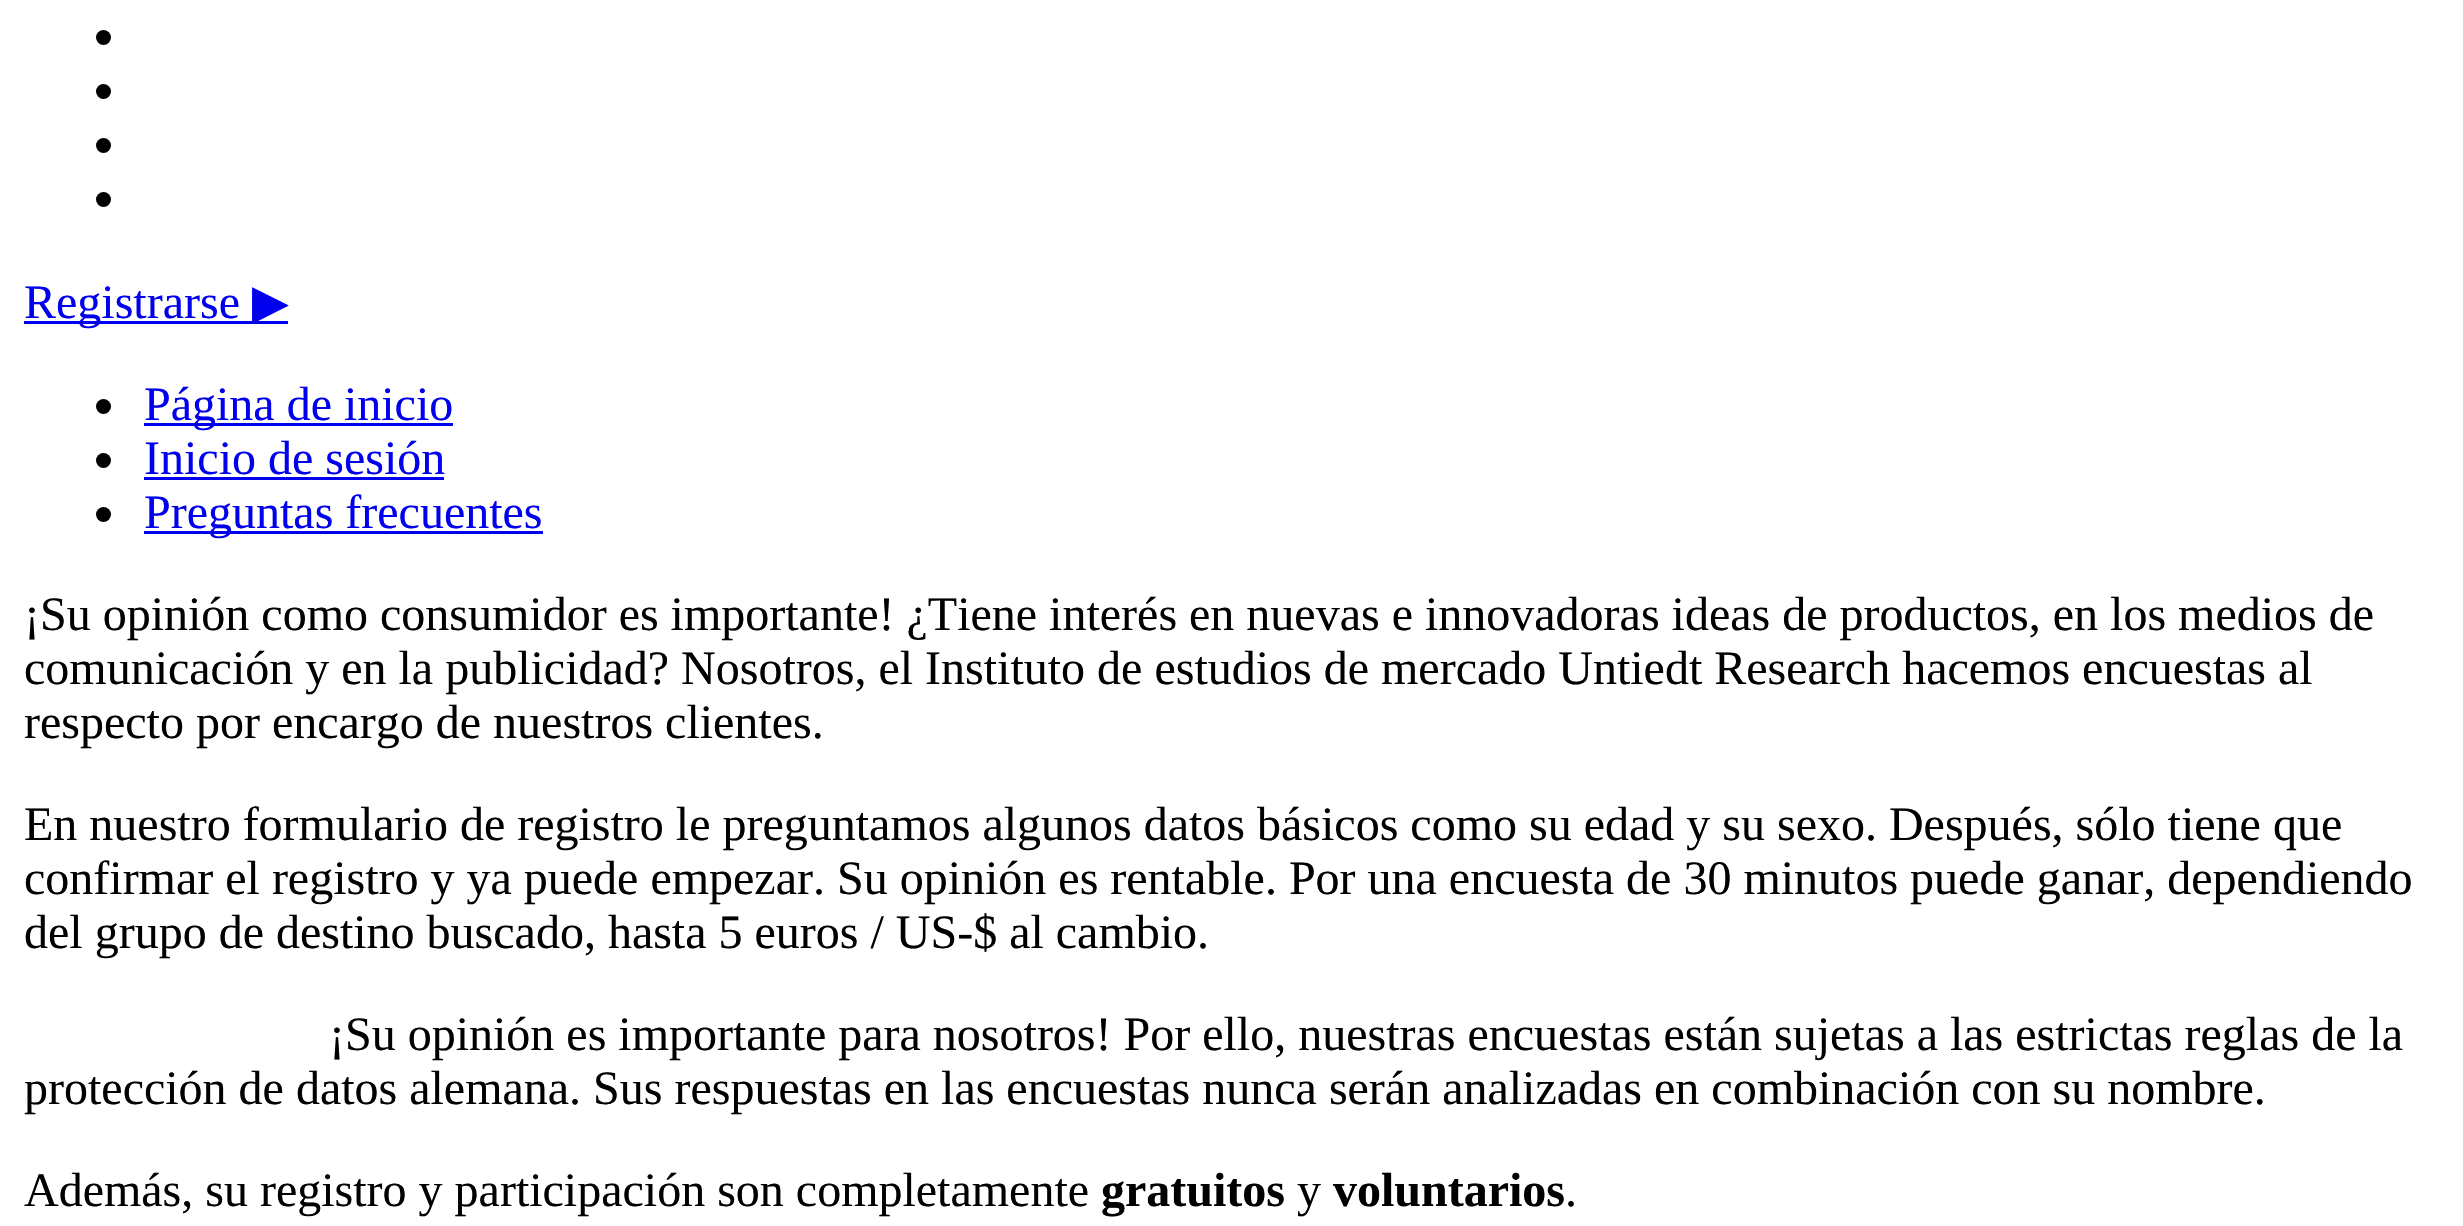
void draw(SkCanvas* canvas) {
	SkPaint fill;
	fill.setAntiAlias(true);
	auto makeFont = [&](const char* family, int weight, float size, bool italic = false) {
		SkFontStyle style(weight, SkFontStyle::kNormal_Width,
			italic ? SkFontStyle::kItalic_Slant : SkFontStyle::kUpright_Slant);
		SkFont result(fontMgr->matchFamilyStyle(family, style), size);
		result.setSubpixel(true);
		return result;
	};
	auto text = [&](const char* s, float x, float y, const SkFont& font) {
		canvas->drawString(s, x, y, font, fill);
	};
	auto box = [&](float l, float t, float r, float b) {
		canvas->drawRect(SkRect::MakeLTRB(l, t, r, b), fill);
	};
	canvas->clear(0xFFFFFFFF);
	fill.setColor(0xFF000000);
	canvas->drawCircle(103.5f, 37.5f, 7.5f, fill);
	canvas->drawCircle(103.5f, 91.5f, 7.5f, fill);
	canvas->drawCircle(103.5f, 145.5f, 7.5f, fill);
	canvas->drawCircle(103.5f, 199.5f, 7.5f, fill);
	fill.setColor(0xFF0000EE);
	box(24, 321, 288, 324);
	fill.setColor(0xFF000000);
	canvas->drawCircle(103.5f, 406.5f, 7.5f, fill);
	fill.setColor(0xFF0000EE);
	box(144, 423, 453, 426);
	fill.setColor(0xFF000000);
	canvas->drawCircle(103.5f, 460.5f, 7.5f, fill);
	fill.setColor(0xFF0000EE);
	box(144, 477, 444, 480);
	fill.setColor(0xFF000000);
	canvas->drawCircle(103.5f, 514.5f, 7.5f, fill);
	fill.setColor(0xFF0000EE);
	box(144, 531, 543, 534);
	auto font1 = makeFont("Liberation Serif", 400, 48);
	text("Registrarse", 24, 318, font1);
	auto font2 = makeFont("DejaVu Sans", 400, 48);
	text("▶", 252, 318, font2);
	text("Página de inicio", 144, 420, font1);
	text("Inicio de sesión", 144, 474, font1);
	text("Preguntas frecuentes", 144, 528, font1);
	fill.setColor(0xFF000000);
	text("¡Su opinión como consumidor es importante! ¿Tiene interés en nuevas e innovadoras ideas de productos, en los medios de", 24, 630, font1);
	text("comunicación y en la publicidad? Nosotros, el Instituto de estudios de mercado Untiedt Research hacemos encuestas al", 24, 684, font1);
	text("respecto por encargo de nuestros clientes.", 24, 738, font1);
	text("En nuestro formulario de registro le preguntamos algunos datos básicos como su edad y su sexo. Después, sólo tiene que", 24, 840, font1);
	text("confirmar el registro y ya puede empezar. Su opinión es rentable. Por una encuesta de 30 minutos puede ganar, dependiendo", 24, 894, font1);
	text("del grupo de destino buscado, hasta 5 euros / US-$ al cambio.", 24, 948, font1);
	text("¡Su opinión es importante para nosotros! Por ello, nuestras encuestas están sujetas a las estrictas reglas de la", 329, 1050, font1);
	text("protección de datos alemana. Sus respuestas en las encuestas nunca serán analizadas en combinación con su nombre.", 24, 1104, font1);
	text("Además, su registro y participación son completamente", 24, 1206, font1);
	auto font3 = makeFont("Liberation Serif", 700, 48);
	text("gratuitos", 1101, 1206, font3);
	text("y", 1297, 1206, font1);
	text("voluntarios", 1333, 1206, font3);
	text(".", 1565, 1206, font1);
}
